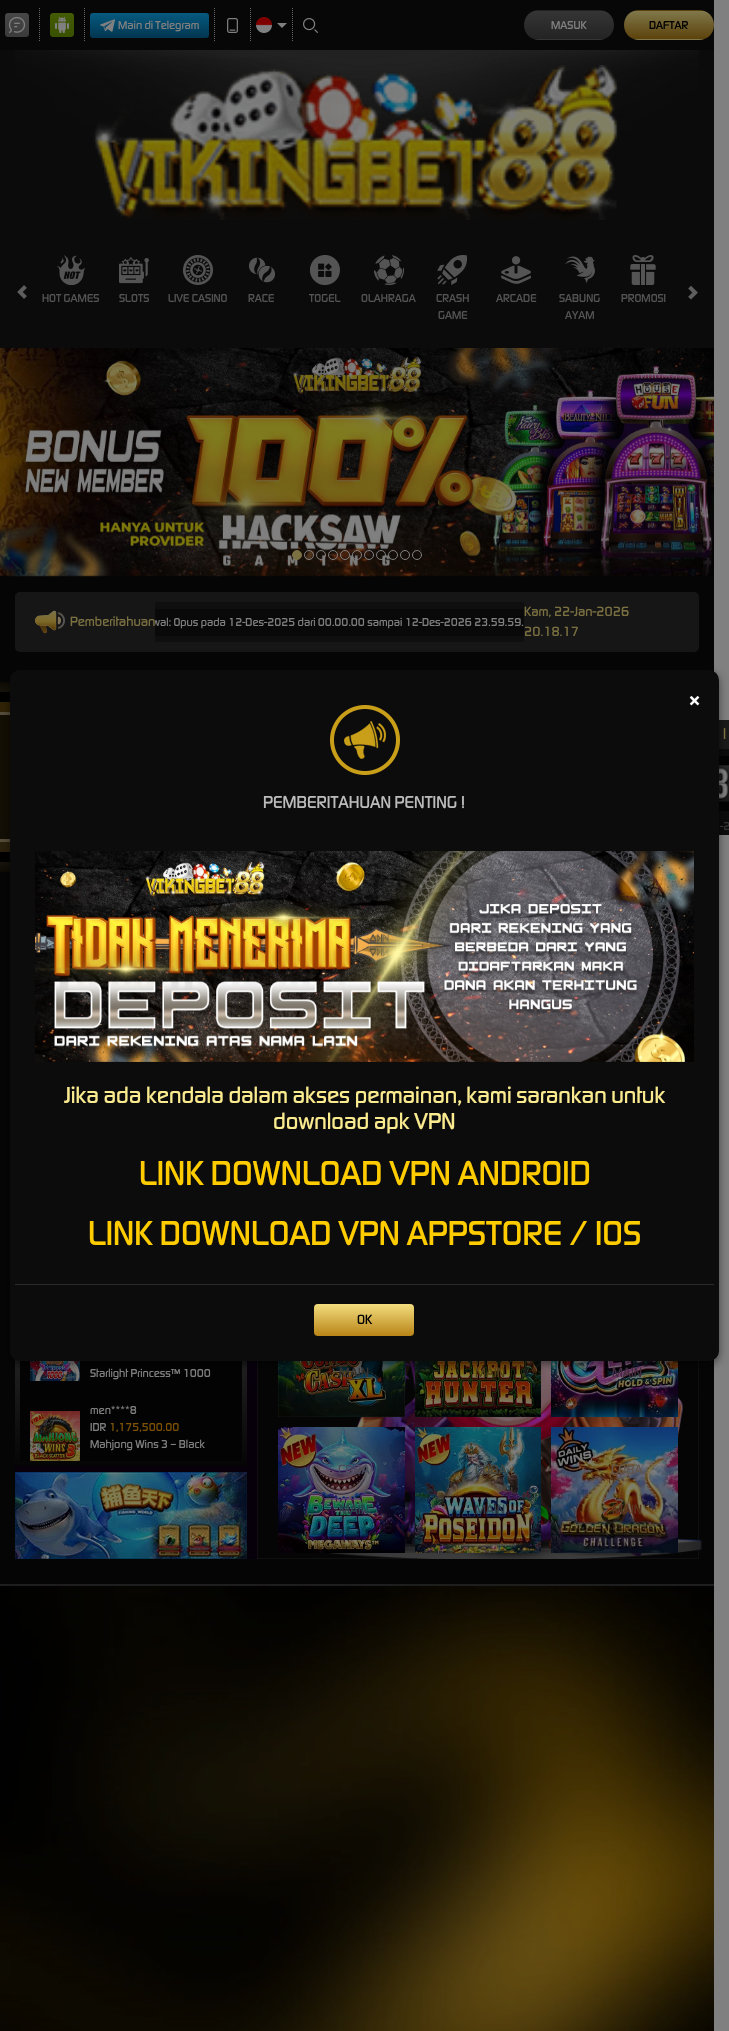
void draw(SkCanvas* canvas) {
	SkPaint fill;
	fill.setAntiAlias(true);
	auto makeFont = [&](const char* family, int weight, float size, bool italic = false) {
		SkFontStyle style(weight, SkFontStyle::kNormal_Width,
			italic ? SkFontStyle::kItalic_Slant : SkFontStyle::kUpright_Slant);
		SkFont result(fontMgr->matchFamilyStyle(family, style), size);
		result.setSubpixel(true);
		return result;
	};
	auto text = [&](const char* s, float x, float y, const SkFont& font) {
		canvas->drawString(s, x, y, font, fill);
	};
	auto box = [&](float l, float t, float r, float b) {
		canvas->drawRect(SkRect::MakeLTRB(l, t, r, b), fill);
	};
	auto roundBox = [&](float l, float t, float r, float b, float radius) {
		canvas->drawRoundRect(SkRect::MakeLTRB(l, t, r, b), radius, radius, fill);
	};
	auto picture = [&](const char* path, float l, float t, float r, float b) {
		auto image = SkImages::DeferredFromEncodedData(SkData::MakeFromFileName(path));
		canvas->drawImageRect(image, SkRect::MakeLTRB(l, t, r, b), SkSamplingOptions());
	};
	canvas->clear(0xFF808080);
	fill.setColor(0xFF070707);
	box(0, 0, 714, 50);
	picture("image0.png", 5, 13, 29, 37);
	fill.setStyle(SkPaint::kStroke_Style);
	fill.setStrokeWidth(1);
	fill.setColor(0xFF666666);
	fill.setPathEffect(SkDashPathEffect::Make({{1, 1}}, 0));
	canvas->drawPath(SkPathBuilder().moveTo(39.5f, 8).lineTo(39.5f, 42).detach(), fill);
	fill.setPathEffect(nullptr);
	picture("image1.png", 50, 13, 74, 37);
	fill.setPathEffect(SkDashPathEffect::Make({{1, 1}}, 0));
	canvas->drawPath(SkPathBuilder().moveTo(84.5f, 8).lineTo(84.5f, 42).detach(), fill);
	fill.setPathEffect(nullptr);
	fill.setStyle(SkPaint::kFill_Style);
	{
		const SkColor colors[] = {0xFF065A80, 0xFF023650};
		const float stops[] = {0, 1};
		const SkPoint ends[] = {{150, 13}, {150, 38}};
		fill.setShader(SkGradientShader::MakeLinear(ends, colors, stops, 2, SkTileMode::kClamp));
		fill.setAlpha(255);
	}
	roundBox(90, 13, 209, 38, 3);
	picture("image2.png", 100, 19, 115, 32);
	fill.setStyle(SkPaint::kStroke_Style);
	fill.setShader(nullptr);
	fill.setColor(0xFF666666);
	fill.setPathEffect(SkDashPathEffect::Make({{1, 1}}, 0));
	canvas->drawPath(SkPathBuilder().moveTo(214.5f, 8).lineTo(214.5f, 42).detach(), fill);
	fill.setPathEffect(nullptr);
	picture("image3.png", 227, 18, 238, 33);
	fill.setPathEffect(SkDashPathEffect::Make({{1, 1}}, 0));
	canvas->drawPath(SkPathBuilder().moveTo(250.5f, 8).lineTo(250.5f, 42).detach(), fill);
	fill.setPathEffect(nullptr);
	picture("image4.png", 256, 17, 272, 33);
	fill.setStyle(SkPaint::kFill_Style);
	fill.setColor(0xFF808080);
	canvas->drawPath(SkPathBuilder().moveTo(277, 23).lineTo(287, 23).lineTo(282, 28).close().detach(), fill);
	fill.setStyle(SkPaint::kStroke_Style);
	fill.setColor(0xFF666666);
	fill.setPathEffect(SkDashPathEffect::Make({{1, 1}}, 0));
	canvas->drawPath(SkPathBuilder().moveTo(292.5f, 8).lineTo(292.5f, 42).detach(), fill);
	fill.setPathEffect(nullptr);
	picture("image5.png", 303, 18, 318, 33);
	canvas->save();
	canvas->clipPath(SkPathBuilder().moveTo(539, 10).lineTo(599, 10).cubicTo(607.5f, 10, 614, 16.5f, 614, 25).cubicTo(614, 33.5f, 607.5f, 40, 599, 40).lineTo(539, 40).cubicTo(530.5f, 40, 524, 33.5f, 524, 25).cubicTo(524, 16.5f, 530.5f, 10, 539, 10).close().detach(), true);
	fill.setStyle(SkPaint::kFill_Style);
	{
		const SkColor colors[] = {0xFF353535, 0xFF232323};
		const float stops[] = {0, 1};
		const SkPoint ends[] = {{569, -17}, {569, 11}};
		fill.setShader(SkGradientShader::MakeLinear(ends, colors, stops, 2, SkTileMode::kClamp));
		fill.setAlpha(255);
	}
	box(534, 10, 604, 11);
	{
		const SkColor colors[] = {0xFF353535, 0xFF232323};
		const float stops[] = {0, 1};
		const SkPoint ends[] = {{569, 11}, {569, 39}};
		fill.setShader(SkGradientShader::MakeLinear(ends, colors, stops, 2, SkTileMode::kClamp));
		fill.setAlpha(255);
	}
	box(524, 11, 614, 39);
	{
		const SkColor colors[] = {0xFF353535, 0xFF232323};
		const float stops[] = {0, 1};
		const SkPoint ends[] = {{569, 39}, {569, 67}};
		fill.setShader(SkGradientShader::MakeLinear(ends, colors, stops, 2, SkTileMode::kClamp));
		fill.setAlpha(255);
	}
	box(534, 39, 604, 40);
	canvas->restore();
	canvas->save();
	canvas->clipPath(SkPathBuilder().moveTo(639, 10).lineTo(699, 10).cubicTo(707.5f, 10, 714, 16.5f, 714, 25).cubicTo(714, 33.5f, 707.5f, 40, 699, 40).lineTo(639, 40).cubicTo(630.5f, 40, 624, 33.5f, 624, 25).cubicTo(624, 16.5f, 630.5f, 10, 639, 10).close().detach(), true);
	{
		const SkColor colors[] = {0xFF80784B, 0xFF5C420B};
		const float stops[] = {0, 1};
		const SkPoint ends[] = {{669, -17}, {669, 11}};
		fill.setShader(SkGradientShader::MakeLinear(ends, colors, stops, 2, SkTileMode::kClamp));
		fill.setAlpha(255);
	}
	box(634, 10, 704, 11);
	{
		const SkColor colors[] = {0xFF80784B, 0xFF5C420B};
		const float stops[] = {0, 1};
		const SkPoint ends[] = {{669, 11}, {669, 39}};
		fill.setShader(SkGradientShader::MakeLinear(ends, colors, stops, 2, SkTileMode::kClamp));
		fill.setAlpha(255);
	}
	box(624, 11, 714, 39);
	{
		const SkColor colors[] = {0xFF80784B, 0xFF5C420B};
		const float stops[] = {0, 1};
		const SkPoint ends[] = {{669, 39}, {669, 67}};
		fill.setShader(SkGradientShader::MakeLinear(ends, colors, stops, 2, SkTileMode::kClamp));
		fill.setAlpha(255);
	}
	box(634, 39, 704, 40);
	canvas->restore();
	fill.setShader(nullptr);
	fill.setColor(0xFF0B0B0B);
	box(0, 50, 714, 348);
	picture("image6.png", 15, 50, 699, 160);
	picture("image7.png", 93, 65, 619, 220);
	picture("image8.png", 17, 285, 27, 299);
	picture("image9.png", 56, 255, 86, 285);
	picture("image10.png", 119, 257, 149, 284);
	picture("image11.png", 183, 255, 213, 285);
	picture("image12.png", 248, 257, 276, 283);
	picture("image13.png", 310, 255, 340, 285);
	picture("image14.png", 374, 255, 404, 285);
	picture("image15.png", 437, 255, 467, 285);
	picture("image16.png", 501, 256, 531, 284);
	picture("image17.png", 565, 256, 595, 284);
	picture("image18.png", 630, 255, 656, 285);
	picture("image19.png", 688, 285, 698, 300);
	fill.setColor(0xFF040404);
	box(0, 575, 714, 577);
	picture("image20.png", 0, 348, 714, 577);
	fill.setColor(0xFF7A7041);
	canvas->drawCircle(297, 555, 4.5f, fill);
	fill.setStyle(SkPaint::kStroke_Style);
	canvas->drawCircle(297, 555, 4.5f, fill);
	fill.setColor(0xFF808080);
	canvas->drawCircle(309, 555, 4.5f, fill);
	canvas->drawCircle(321, 555, 4.5f, fill);
	canvas->drawCircle(333, 555, 4.5f, fill);
	canvas->drawCircle(345, 555, 4.5f, fill);
	canvas->drawCircle(357, 555, 4.5f, fill);
	canvas->drawCircle(369, 555, 4.5f, fill);
	canvas->drawCircle(381, 555, 4.5f, fill);
	canvas->drawCircle(393, 555, 4.5f, fill);
	canvas->drawCircle(405, 555, 4.5f, fill);
	canvas->drawCircle(417, 555, 4.5f, fill);
	fill.setStyle(SkPaint::kFill_Style);
	fill.setColor(0xFF050505);
	box(0, 577, 714, 1584);
	fill.setColor(0xFF1F1E1F);
	box(0, 1584, 714, 1586);
	fill.setColor(0xFF161616);
	roundBox(15, 592, 699, 652, 5);
	picture("image21.png", 35, 610, 65, 634);
	fill.setColor(0xFF0F0F0F);
	box(155, 602, 524, 642);
	fill.setColor(0xFF0A0909);
	box(155, 609, 524, 636);
	{
		const SkColor colors[] = {0xFF0E0B04, 0xFF6A6047, 0xFF0E0B04};
		const float stops[] = {0, 0.5f, 1};
		const SkPoint ends[] = {{244, 682}, {244, 872}};
		fill.setShader(SkGradientShader::MakeLinear(ends, colors, stops, 3, SkTileMode::kClamp));
		fill.setAlpha(255);
	}
	box(0, 682, 10, 872);
	fill.setShader(nullptr);
	fill.setColor(0xFF000000);
	box(0, 692, 10, 862);
	{
		const SkColor colors[] = {0xFF302305, 0xFF2A210C};
		const float stops[] = {0, 1};
		const SkPoint ends[] = {{244, 702}, {244, 852}};
		fill.setShader(SkGradientShader::MakeLinear(ends, colors, stops, 2, SkTileMode::kClamp));
		fill.setAlpha(255);
	}
	box(0, 702, 10, 852);
	fill.setShader(nullptr);
	fill.setColor(0x99000000);
	box(0, 715, 10, 839);
	fill.setStyle(SkPaint::kStroke_Style);
	fill.setStrokeWidth(3);
	fill.setColor(0xFF554D39);
	canvas->drawRect(SkRect::MakeLTRB(-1.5f, 713.5f, 551.5f, 840.5f), fill);
	fill.setStyle(SkPaint::kFill_Style);
	fill.setColor(0xFF0B0B0B);
	box(719, 749, 729, 835);
	fill.setColor(0xFF191919);
	box(719, 720, 729, 749);
	fill.setColor(0xFF020202);
	box(719, 756, 729, 811);
	picture("image22.png", 719, 765, 729, 802);
	picture("image23.png", 15, 1361, 257, 1559);
	{
		const SkColor colors[] = {0xFF050505, 0xFF1E1E1E, 0xFF050505};
		const float stops[] = {0, 0.46f, 1};
		const SkPoint ends[] = {{131, 1286}, {131, 1466}};
		fill.setShader(SkGradientShader::MakeLinear(ends, colors, stops, 3, SkTileMode::kClamp));
		fill.setAlpha(255);
	}
	box(15, 1359, 247, 1466);
	fill.setShader(nullptr);
	fill.setColor(0xFF030303);
	box(20, 1361, 242, 1461);
	picture("image24.png", 30, 1361, 80, 1381);
	picture("image25.png", 30, 1411, 80, 1461);
	picture("image26.png", 15, 1472, 247, 1559);
	fill.setStyle(SkPaint::kStroke_Style);
	fill.setStrokeWidth(1);
	fill.setColor(0xFF100F0F);
	canvas->drawRect(SkRect::MakeLTRB(257.5f, 1284.5f, 698.5f, 1558.5f), fill);
	picture("image27.png", 328, 1361, 702, 1559);
	picture("image28.png", 278, 1361, 405, 1417);
	picture("image29.png", 415, 1361, 541, 1417);
	picture("image30.png", 551, 1361, 678, 1417);
	picture("image31.png", 278, 1427, 405, 1553);
	picture("image32.png", 415, 1427, 541, 1553);
	picture("image33.png", 551, 1427, 678, 1553);
	fill.setStyle(SkPaint::kFill_Style);
	fill.setColor(0x80000000);
	fill.setMaskFilter(SkMaskFilter::MakeBlur(kNormal_SkBlurStyle, 4.5f));
	canvas->drawRoundRect(SkRect::MakeLTRB(10, 673, 719, 1364), 10, 10, fill);
	fill.setMaskFilter(nullptr);
	fill.setColor(0xFF0C0C0C);
	canvas->drawRoundRect(SkRect::MakeLTRB(12.5f, 672.5f, 716.5f, 1358.5f), 7.5f, 7.5f, fill);
	fill.setStyle(SkPaint::kStroke_Style);
	fill.setStrokeWidth(5);
	canvas->drawRoundRect(SkRect::MakeLTRB(12.5f, 672.5f, 716.5f, 1358.5f), 7.5f, 7.5f, fill);
	picture("image34.png", 330, 705, 400, 775);
	picture("image35.png", 35, 851, 694, 1062);
	fill.setStyle(SkPaint::kFill_Style);
	fill.setColor(0xFF2B2B2B);
	box(15, 1284, 714, 1285);
	{
		const SkColor colors[] = {0xFFF3DD7F, 0xFFB88416};
		const float stops[] = {0, 1};
		const SkPoint ends[] = {{364, 1304}, {364, 1336}};
		fill.setShader(SkGradientShader::MakeLinear(ends, colors, stops, 2, SkTileMode::kClamp));
		fill.setAlpha(255);
	}
	roundBox(314, 1304, 414, 1336, 4);
	picture("image36.png", 0, 1586, 714, 2031);
	auto font1 = makeFont("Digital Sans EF", 500, 12);
	fill.setShader(nullptr);
	fill.setColor(0xFF808080);
	text("Main di Telegram", 118, 29, font1);
	text("MASUK", 551, 29, font1);
	fill.setColor(0xFF000000);
	text("DAFTAR", 649, 29, font1);
	fill.setColor(0xFF545454);
	text("HOT GAMES", 42, 302, font1);
	text("SLOTS", 119, 302, font1);
	text("LIVE CASINO", 168, 302, font1);
	text("RACE", 248, 302, font1);
	text("TOGEL", 309, 302, font1);
	text("OLAHRAGA", 361, 302, font1);
	text("CRASH", 436, 302, font1);
	text("GAME", 438, 319, font1);
	text("ARCADE", 496, 302, font1);
	text("SABUNG", 559, 302, font1);
	text("AYAM", 565, 319, font1);
	text("PROMOSI", 621, 302, font1);
	auto font2 = makeFont("Digital Sans EF", 500, 14);
	fill.setColor(0xFF7A7040);
	text("Pemberitahuan", 70, 626, font2);
	canvas->save();
	canvas->clipRect(SkRect::MakeLTRB(155, 609, 524, 636));
	fill.setColor(0xFF808080);
	text("wal: Opus pada 12-Des-2025 dari 00.00.00 sampai 12-Des-2026 23.59.59.", 152, 626, font1);
	canvas->restore();
	fill.setColor(0xFF7A7040);
	text("Kam, 22-Jan-2026", 524, 616, font2);
	text("20.18.17", 524, 636, font2);
	auto font3 = makeFont("Digital Sans EF", 500, 16);
	text("l", 723, 739, font3);
	fill.setColor(0xFF333333);
	text("-2", 720, 830, font1);
	fill.setColor(0xFF808080);
	text("Starlight Princess™ 1000", 90, 1377, font1);
	text("men****8", 90, 1414, font1);
	text("IDR", 90, 1431, font1);
	fill.setColor(0xFF7C5101);
	text("1,175,500.00", 109, 1431, font1);
	fill.setColor(0xFF808080);
	text("Mahjong Wins 3 – Black", 90, 1448, font1);
	fill.setColor(0xFF333333);
	text("MAIN", 339, 1377, font2);
	fill.setColor(0xFF524116);
	text("MAIN", 475, 1377, font2);
	fill.setColor(0xFF422D40);
	text("MAIN", 612, 1377, font2);
	fill.setColor(0xFF494B5D);
	text("COBA", 338, 1474, font2);
	fill.setColor(0xFF26464A);
	text("MAIN", 339, 1514, font2);
	fill.setColor(0xFF434742);
	text("COBA", 475, 1474, font2);
	fill.setColor(0xFF304350);
	text("MAIN", 475, 1514, font2);
	fill.setColor(0xFF62554A);
	text("COBA", 611, 1474, font2);
	fill.setColor(0xFF59331D);
	text("MAIN", 612, 1514, font2);
	auto font4 = makeFont("Digital Sans EF", 700, 21);
	fill.setColor(0xFFFFFFFF);
	text("×", 689, 708, font4);
	auto font5 = makeFont("Digital Sans EF", 500, 18);
	fill.setColor(0xFFBBBBBB);
	text("PEMBERITAHUAN PENTING !", 263, 808, font5);
	auto font6 = makeFont("Digital Sans EF", 500, 24);
	fill.setColor(0xFFFBEB8F);
	text("Jika ada kendala dalam akses permainan, kami sarankan untuk", 64, 1103, font6);
	text("download apk VPN", 273, 1129, font6);
	auto font7 = makeFont("Digital Sans EF", 500, 36);
	fill.setColor(0xFFFFCC00);
	text("LINK DOWNLOAD VPN ANDROID", 139, 1185, font7);
	text("LINK DOWNLOAD VPN APPSTORE / IOS", 88, 1245, font7);
	fill.setColor(0xFF000000);
	text("OK", 357, 1324, font2);
}
